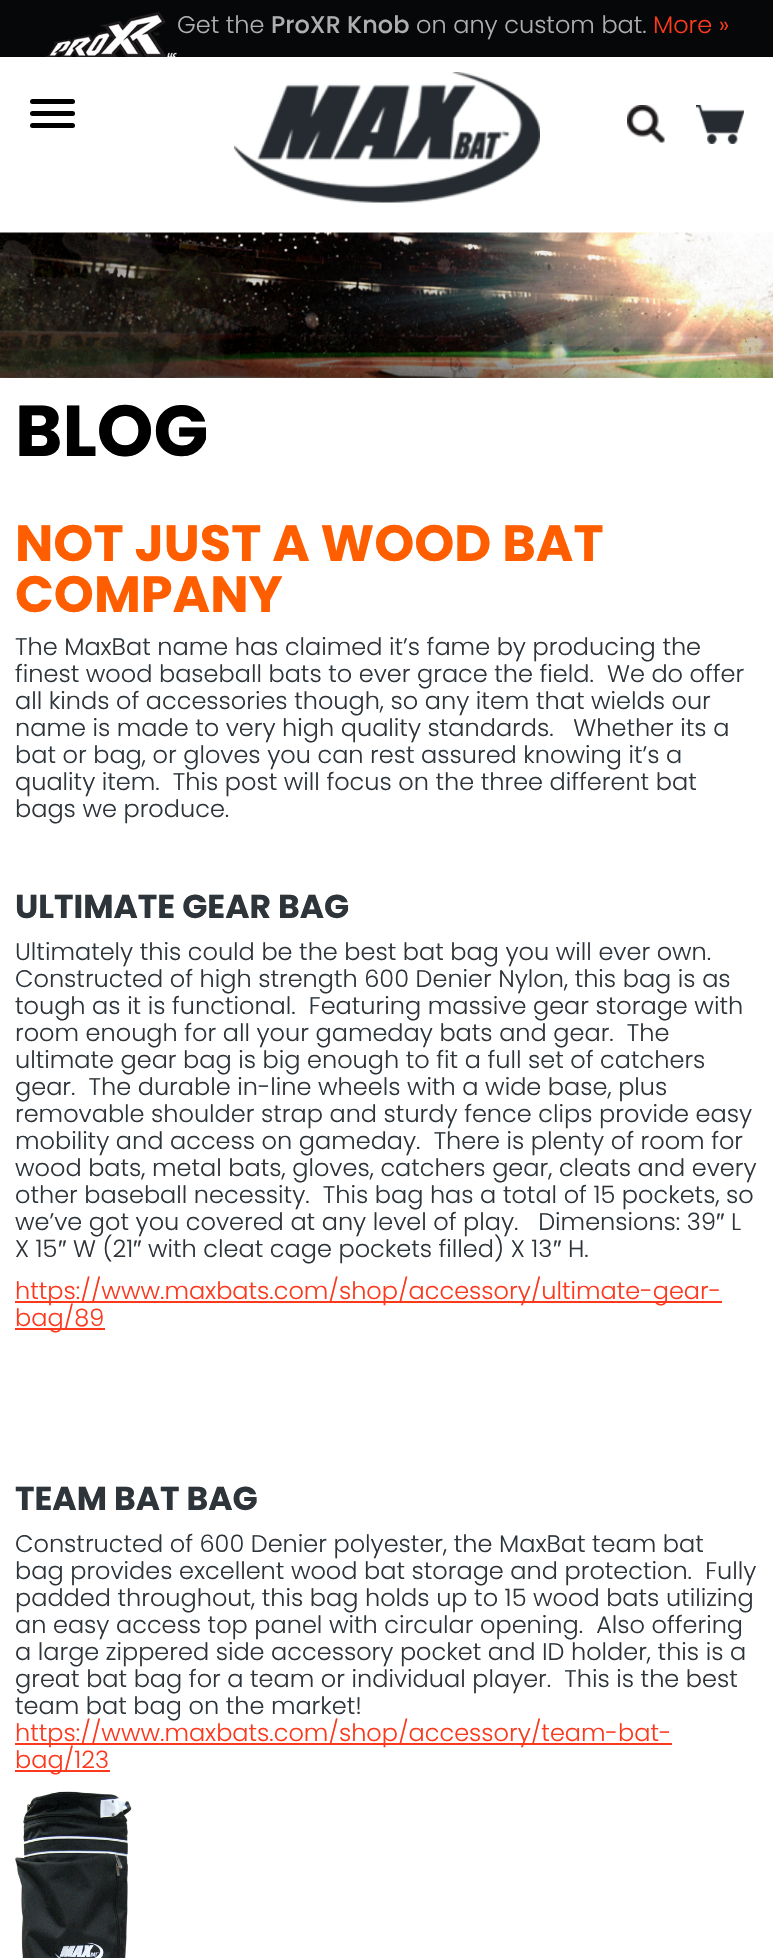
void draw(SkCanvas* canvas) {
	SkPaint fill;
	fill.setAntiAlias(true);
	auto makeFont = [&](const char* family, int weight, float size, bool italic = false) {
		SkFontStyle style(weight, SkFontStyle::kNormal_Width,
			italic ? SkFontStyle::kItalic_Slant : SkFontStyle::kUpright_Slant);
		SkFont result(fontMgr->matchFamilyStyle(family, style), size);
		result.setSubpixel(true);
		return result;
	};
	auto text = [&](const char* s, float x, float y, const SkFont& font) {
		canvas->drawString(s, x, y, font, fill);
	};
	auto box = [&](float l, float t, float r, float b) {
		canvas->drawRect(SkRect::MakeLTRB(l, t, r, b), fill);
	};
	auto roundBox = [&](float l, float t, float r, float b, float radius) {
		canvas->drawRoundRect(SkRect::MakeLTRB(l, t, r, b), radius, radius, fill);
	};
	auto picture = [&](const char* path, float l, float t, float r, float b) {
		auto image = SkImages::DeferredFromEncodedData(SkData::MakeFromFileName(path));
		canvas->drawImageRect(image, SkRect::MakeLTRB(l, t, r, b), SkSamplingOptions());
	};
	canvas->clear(0xFFFFFFFF);
	fill.setColor(0xFF050709);
	box(0, 0, 773, 57);
	picture("image0.png", 45, 12, 177, 57);
	fill.setColor(0xFF000000);
	roundBox(30, 99, 75, 104, 2.5f);
	roundBox(30, 111, 75, 116, 2.5f);
	roundBox(30, 123, 75, 128, 2.5f);
	picture("image1.png", 234, 72, 540, 203);
	picture("image2.png", 627, 105, 665, 143);
	picture("image3.png", 696, 105, 744, 144);
	picture("image4.png", 0, 232, 773, 378);
	fill.setColor(0xFFFC381D);
	box(15, 1301, 722, 1303);
	box(15, 1328, 105, 1330);
	box(15, 1743, 672, 1745);
	box(15, 1770, 110, 1772);
	picture("image5.png", 15, 1791, 132, 1958);
	auto font1 = makeFont("Poppins", 300, 24);
	fill.setColor(0xFFAFAFAF);
	text("Get the", 177, 33, font1);
	auto font2 = makeFont("Poppins", 500, 24);
	text("ProXR Knob", 271, 33, font2);
	text("on any custom bat.", 416, 33, font1);
	fill.setColor(0xFFFC381D);
	text("More »", 653, 33, font1);
	auto font3 = makeFont("Poppins", 700, 72);
	fill.setColor(0xFF000000);
	text("BLOG", 15, 456, font3);
	auto font4 = makeFont("Poppins", 700, 51);
	fill.setColor(0xFFFF5E00);
	text("NOT JUST A WOOD BAT", 15, 561, font4);
	text("COMPANY", 15, 612, font4);
	fill.setColor(0xFF2D343A);
	text("The MaxBat name has claimed it’s fame by producing the", 15, 655, font1);
	text("finest wood baseball bats to ever grace the field.  We do offer", 15, 682, font1);
	text("all kinds of accessories though, so any item that wields our", 15, 709, font1);
	text("name is made to very high quality standards.   Whether its a", 15, 736, font1);
	text("bat or bag, or gloves you can rest assured knowing it’s a", 15, 763, font1);
	text("quality item.  This post will focus on the three different bat", 15, 790, font1);
	text("bags we produce.", 15, 817, font1);
	auto font5 = makeFont("Poppins", 700, 33);
	text("ULTIMATE GEAR BAG", 15, 918, font5);
	text("Ultimately this could be the best bat bag you will ever own.", 15, 960, font1);
	text("Constructed of high strength 600 Denier Nylon, this bag is as", 15, 987, font1);
	text("tough as it is functional.  Featuring massive gear storage with", 15, 1014, font1);
	text("room enough for all your gameday bats and gear.  The", 15, 1041, font1);
	text("ultimate gear bag is big enough to fit a full set of catchers", 15, 1068, font1);
	text("gear.  The durable in-line wheels with a wide base, plus", 15, 1095, font1);
	text("removable shoulder strap and sturdy fence clips provide easy", 15, 1122, font1);
	text("mobility and access on gameday.  There is plenty of room for", 15, 1149, font1);
	text("wood bats, metal bats, gloves, catchers gear, cleats and every", 15, 1176, font1);
	text("other baseball necessity.  This bag has a total of 15 pockets, so", 15, 1203, font1);
	text("we’ve got you covered at any level of play.   Dimensions: 39", 15, 1230, font1);
	auto font6 = makeFont("Liberation Sans", 400, 24);
	text("″", 716, 1230, font6);
	text("L", 731, 1230, font1);
	text("X 15", 15, 1257, font1);
	text("″", 58, 1257, font6);
	text("W (21", 73, 1257, font1);
	text("″", 133, 1257, font6);
	text("with cleat cage pockets filled) X 13", 148, 1257, font1);
	text("″", 553, 1257, font6);
	text("H.", 568, 1257, font1);
	fill.setColor(0xFFFC381D);
	text("https://www.maxbats.com/shop/accessory/ultimate-gear-", 15, 1299, font1);
	text("bag/89", 15, 1326, font1);
	fill.setColor(0xFF2D343A);
	text("TEAM BAT BAG", 15, 1510, font5);
	text("Constructed of 600 Denier polyester, the MaxBat team bat", 15, 1552, font1);
	text("bag provides excellent wood bat storage and protection.  Fully", 15, 1579, font1);
	text("padded throughout, this bag holds up to 15 wood bats utilizing", 15, 1606, font1);
	text("an easy access top panel with circular opening.  Also offering", 15, 1633, font1);
	text("a large zippered side accessory pocket and ID holder, this is a", 15, 1660, font1);
	text("great bat bag for a team or individual player.  This is the best", 15, 1687, font1);
	text("team bat bag on the market!", 15, 1714, font1);
	fill.setColor(0xFFFC381D);
	text("https://www.maxbats.com/shop/accessory/team-bat-", 15, 1741, font1);
	text("bag/123", 15, 1768, font1);
}
